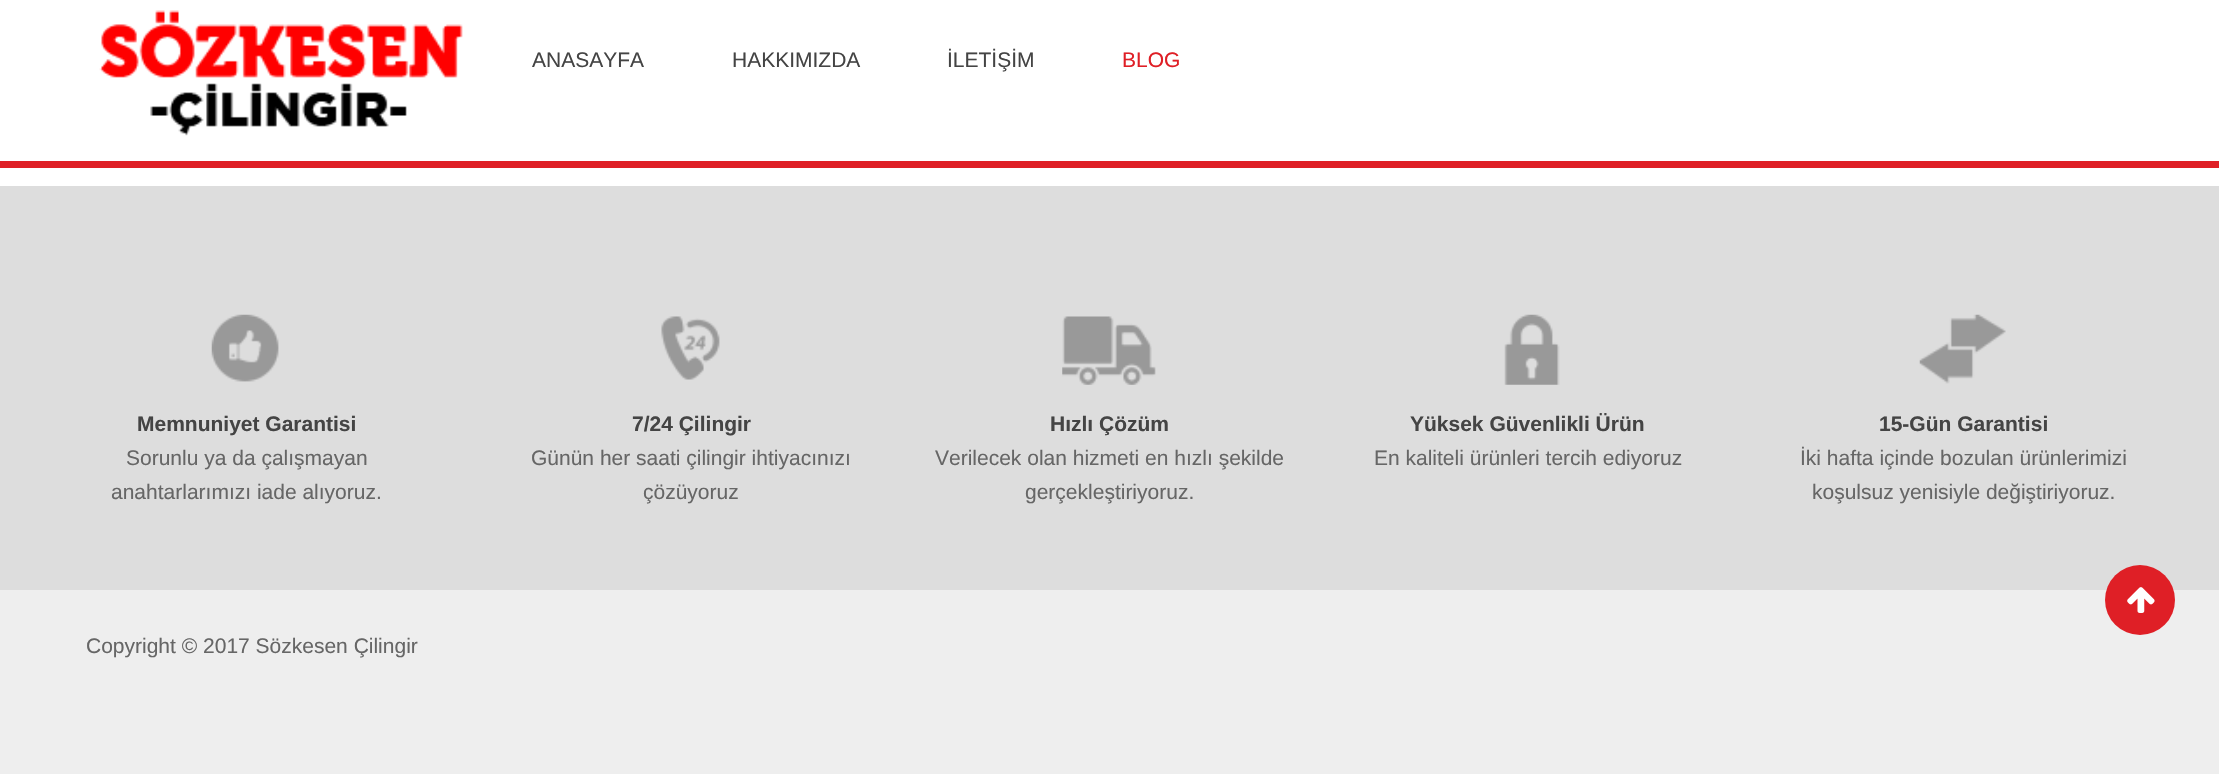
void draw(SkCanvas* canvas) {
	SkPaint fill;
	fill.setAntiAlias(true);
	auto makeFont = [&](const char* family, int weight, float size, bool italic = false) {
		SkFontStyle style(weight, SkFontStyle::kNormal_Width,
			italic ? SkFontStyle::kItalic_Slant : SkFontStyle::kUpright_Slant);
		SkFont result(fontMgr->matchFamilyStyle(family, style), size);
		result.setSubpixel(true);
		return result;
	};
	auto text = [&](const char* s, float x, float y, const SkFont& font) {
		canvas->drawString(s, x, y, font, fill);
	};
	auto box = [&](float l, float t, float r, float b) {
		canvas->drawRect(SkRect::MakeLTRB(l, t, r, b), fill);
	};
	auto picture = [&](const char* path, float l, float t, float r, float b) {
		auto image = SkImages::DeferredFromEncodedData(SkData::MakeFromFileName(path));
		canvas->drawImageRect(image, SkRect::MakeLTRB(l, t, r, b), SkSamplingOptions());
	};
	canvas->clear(0xFFFFFFFF);
	fill.setColor(0xFFDF1F26);
	box(0, 161, 2219, 168);
	picture("image0.png", 99, 10, 463, 136);
	fill.setColor(0xFFDDDDDD);
	box(0, 186, 2219, 590);
	picture("image1.png", 211, 314, 279, 382);
	picture("image2.png", 661, 316, 720, 380);
	picture("image3.png", 1062, 316, 1156, 385);
	picture("image4.png", 1504, 314, 1560, 385);
	picture("image5.png", 1919, 314, 2006, 384);
	fill.setColor(0xFFEEEEEE);
	box(0, 590, 2219, 774);
	fill.setColor(0xFFDF1F26);
	canvas->drawCircle(2140, 600, 35, fill);
	picture("image6.png", 2127, 587, 2155, 613);
	auto font1 = makeFont("Liberation Sans", 400, 21);
	fill.setColor(0xFF444444);
	text("ANASAYFA", 532, 67, font1);
	text("HAKKIMIZDA", 732, 67, font1);
	text("İLETİŞİM", 947, 67, font1);
	fill.setColor(0xFFDF1F26);
	text("BLOG", 1122, 67, font1);
	auto font2 = makeFont("Liberation Sans", 700, 21);
	fill.setColor(0xFF444444);
	text("Memnuniyet Garantisi", 137, 431, font2);
	fill.setColor(0xFF666666);
	text("Sorunlu ya da çalışmayan", 126, 465, font1);
	text("anahtarlarımızı iade alıyoruz.", 111, 499, font1);
	fill.setColor(0xFF444444);
	text("7/24 Çilingir", 632, 431, font2);
	fill.setColor(0xFF666666);
	text("Günün her saati çilingir ihtiyacınızı", 531, 465, font1);
	text("çözüyoruz", 643, 499, font1);
	fill.setColor(0xFF444444);
	text("Hızlı Çözüm", 1050, 431, font2);
	fill.setColor(0xFF666666);
	text("Verilecek olan hizmeti en hızlı şekilde", 935, 465, font1);
	text("gerçekleştiriyoruz.", 1025, 499, font1);
	fill.setColor(0xFF444444);
	text("Yüksek Güvenlikli Ürün", 1410, 431, font2);
	fill.setColor(0xFF666666);
	text("En kaliteli ürünleri tercih ediyoruz", 1374, 465, font1);
	fill.setColor(0xFF444444);
	text("15-Gün Garantisi", 1879, 431, font2);
	fill.setColor(0xFF666666);
	text("İki hafta içinde bozulan ürünlerimizi", 1800, 465, font1);
	text("koşulsuz yenisiyle değiştiriyoruz.", 1812, 499, font1);
	text("Copyright © 2017 Sözkesen Çilingir", 86, 653, font1);
}
